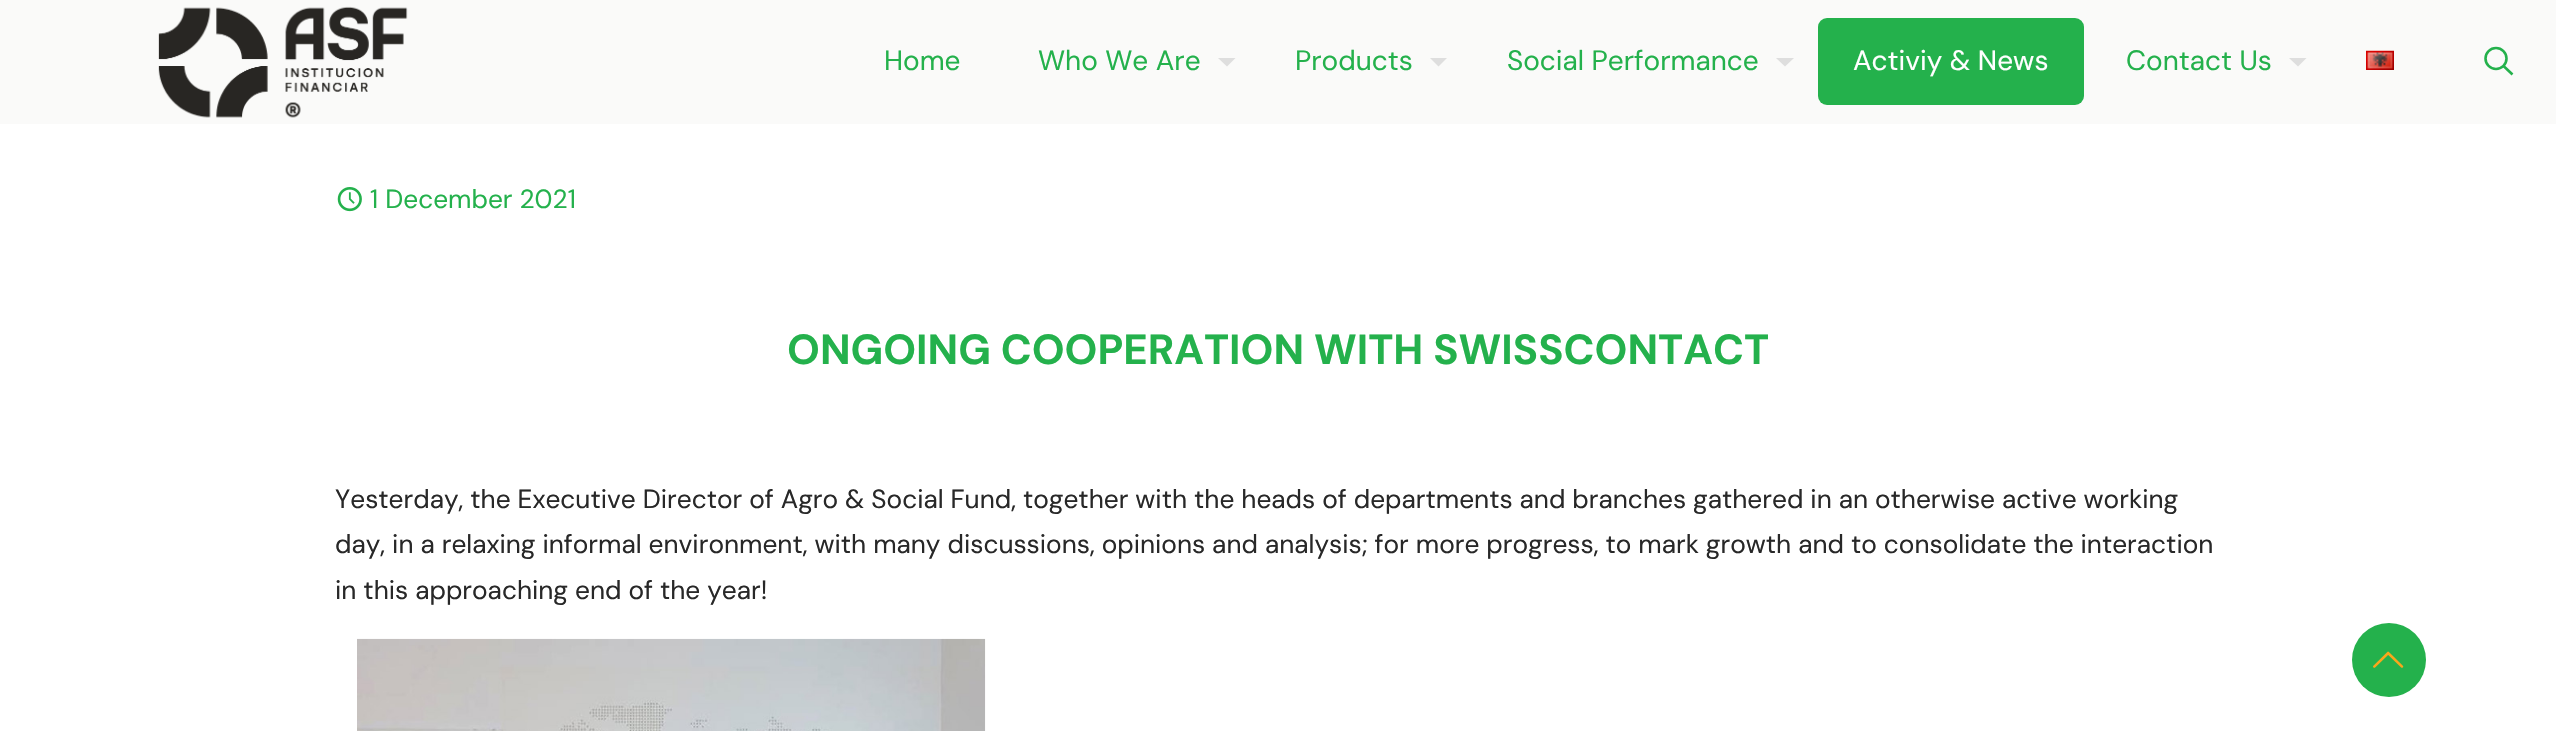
void draw(SkCanvas* canvas) {
	SkPaint fill;
	fill.setAntiAlias(true);
	auto makeFont = [&](const char* family, int weight, float size, bool italic = false) {
		SkFontStyle style(weight, SkFontStyle::kNormal_Width,
			italic ? SkFontStyle::kItalic_Slant : SkFontStyle::kUpright_Slant);
		SkFont result(fontMgr->matchFamilyStyle(family, style), size);
		result.setSubpixel(true);
		return result;
	};
	auto text = [&](const char* s, float x, float y, const SkFont& font) {
		canvas->drawString(s, x, y, font, fill);
	};
	auto box = [&](float l, float t, float r, float b) {
		canvas->drawRect(SkRect::MakeLTRB(l, t, r, b), fill);
	};
	auto roundBox = [&](float l, float t, float r, float b, float radius) {
		canvas->drawRoundRect(SkRect::MakeLTRB(l, t, r, b), radius, radius, fill);
	};
	auto picture = [&](const char* path, float l, float t, float r, float b) {
		auto image = SkImages::DeferredFromEncodedData(SkData::MakeFromFileName(path));
		canvas->drawImageRect(image, SkRect::MakeLTRB(l, t, r, b), SkSamplingOptions());
	};
	canvas->clear(0xFFFFFFFF);
	fill.setColor(0xFFFAFAF9);
	box(0, 0, 2556, 124);
	picture("image0.png", 158, 6, 408, 118);
	fill.setColor(0xFFDEDEDE);
	canvas->drawPath(SkPathBuilder().moveTo(1218, 58).lineTo(1235.5f, 58).lineTo(1227, 66.5f).close().detach(), fill);
	canvas->drawPath(SkPathBuilder().moveTo(1430, 58).lineTo(1447, 58).lineTo(1438.5f, 66.5f).close().detach(), fill);
	canvas->drawPath(SkPathBuilder().moveTo(1776, 58).lineTo(1794, 58).lineTo(1785, 66.5f).close().detach(), fill);
	fill.setColor(0xFF24B14C);
	roundBox(1818, 18, 2084, 105, 9);
	fill.setColor(0xFFDEDEDE);
	canvas->drawPath(SkPathBuilder().moveTo(2289, 58).lineTo(2306.5f, 58).lineTo(2298, 66.5f).close().detach(), fill);
	picture("image1.png", 2366, 50, 2394, 70);
	fill.setStyle(SkPaint::kStroke_Style);
	fill.setStrokeWidth(2.6f);
	fill.setColor(0xFF24B14C);
	canvas->drawCircle(2496, 58.5f, 10.5f, fill);
	canvas->drawPath(SkPathBuilder().moveTo(2503.5f, 66).lineTo(2512.5f, 74.5f).detach(), fill);
	picture("image2.png", 337, 187, 362, 212);
	picture("image3.png", 357, 638, 986, 731);
	fill.setStyle(SkPaint::kFill_Style);
	canvas->drawCircle(2389, 660, 37, fill);
	picture("image4.png", 2373, 651, 2404, 668);
	auto font1 = makeFont("DM Sans", 400, 28);
	text("Home", 884, 70, font1);
	text("Who We Are", 1038, 70, font1);
	text("Products", 1295, 70, font1);
	text("Social Performance", 1507, 70, font1);
	fill.setColor(0xFFFFFFFF);
	text("Activiy & News", 1853, 70, font1);
	fill.setColor(0xFF24B14C);
	text("Contact Us", 2126, 70, font1);
	auto font2 = makeFont("DM Sans", 400, 26.25f);
	text("1 December 2021", 370, 208, font2);
	auto font3 = makeFont("DM Sans", 700, 42);
	text("ONGOING COOPERATION WITH SWISSCONTACT", 787, 364, font3);
	fill.setColor(0xFF282828);
	text("Yesterday, the Executive Director of Agro & Social Fund, together with the heads of departments and branches gathered in an otherwise active working", 335, 508, font2);
	text("day, in a relaxing informal environment, with many discussions, opinions and analysis; for more progress, to mark growth and to consolidate the interaction", 335, 553, font2);
	text("in this approaching end of the year!", 335, 599, font2);
}
